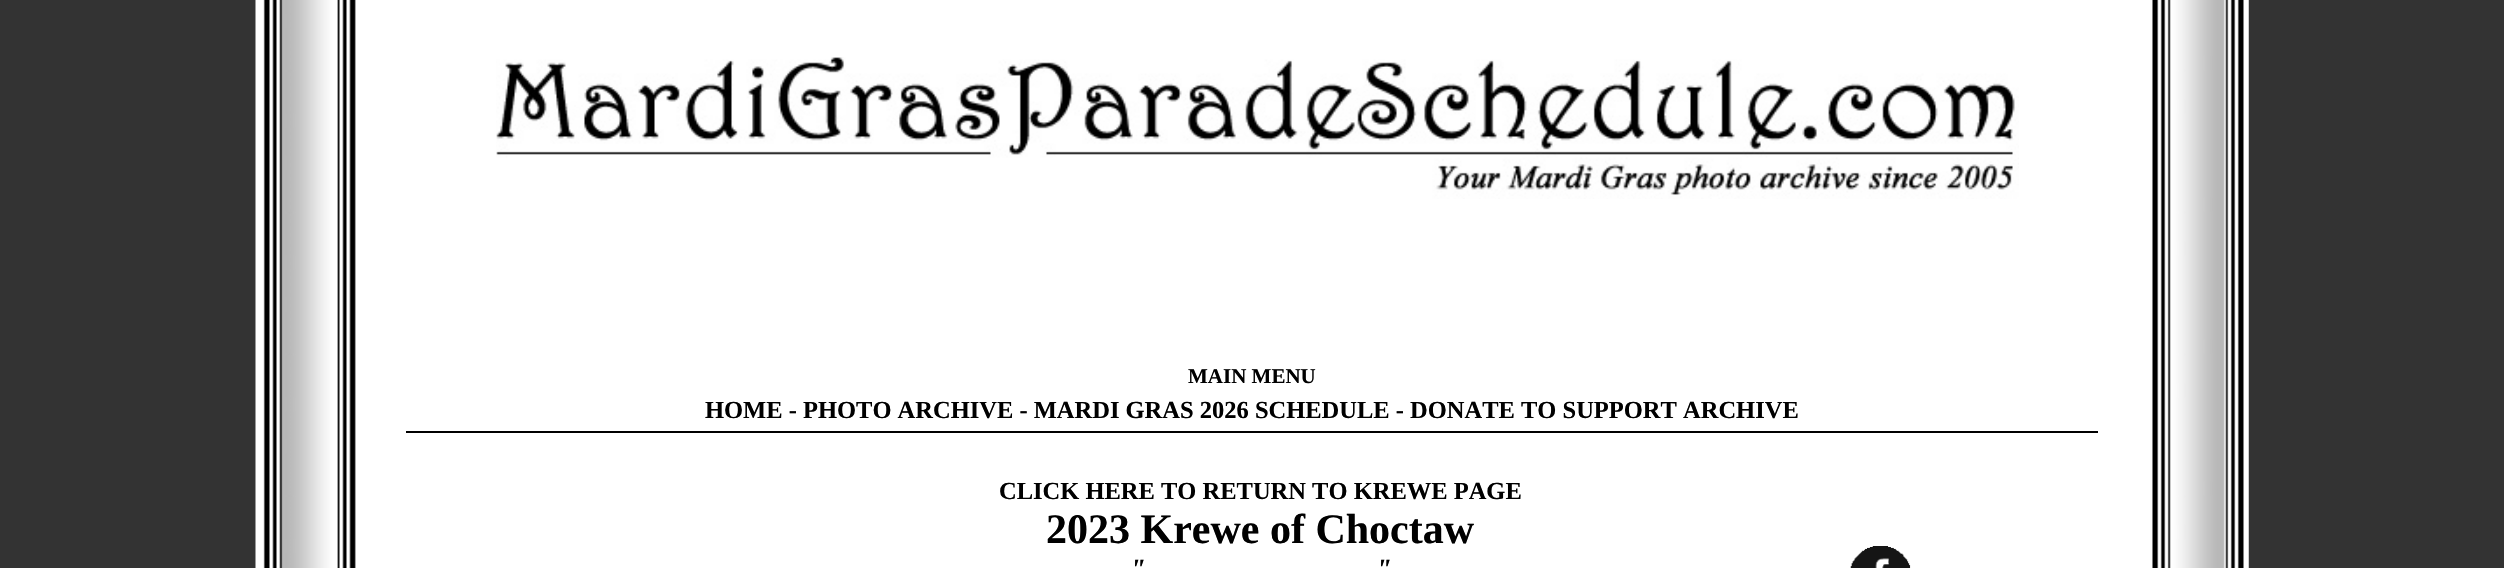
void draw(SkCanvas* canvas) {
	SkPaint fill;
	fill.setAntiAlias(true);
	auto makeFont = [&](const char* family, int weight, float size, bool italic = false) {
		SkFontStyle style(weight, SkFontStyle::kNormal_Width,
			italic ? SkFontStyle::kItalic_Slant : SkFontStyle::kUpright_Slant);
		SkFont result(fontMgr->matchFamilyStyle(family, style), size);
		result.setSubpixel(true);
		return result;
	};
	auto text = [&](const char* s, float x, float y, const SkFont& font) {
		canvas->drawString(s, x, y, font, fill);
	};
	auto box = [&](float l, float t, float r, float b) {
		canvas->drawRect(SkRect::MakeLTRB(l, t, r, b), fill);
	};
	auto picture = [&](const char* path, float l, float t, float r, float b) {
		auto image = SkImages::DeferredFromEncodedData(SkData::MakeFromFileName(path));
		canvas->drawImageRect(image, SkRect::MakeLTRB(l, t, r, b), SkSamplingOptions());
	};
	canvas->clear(0xFF333333);
	picture("image0.png", 255, 0, 2249, 568);
	picture("image1.png", 496, 57, 2019, 199);
	fill.setColor(0xFF000000);
	box(406, 431, 2098, 433);
	picture("image2.png", 1850, 546, 1911, 568);
	auto font1 = makeFont("Liberation Serif", 700, 21);
	text("MAIN MENU", 1188, 383, font1);
	auto font2 = makeFont("Liberation Serif", 700, 24.5f);
	text("HOME - PHOTO ARCHIVE - MARDI GRAS 2026 SCHEDULE - DONATE TO SUPPORT ARCHIVE", 705, 418, font2);
	text("CLICK HERE TO RETURN TO KREWE PAGE", 999, 499, font2);
	auto font3 = makeFont("Liberation Serif", 700, 42);
	text("2023 Krewe of Choctaw", 1046, 543, font3);
	auto font4 = makeFont("Liberation Serif", 700, 28, true);
	text("\"", 1130, 578, font4);
	text("\"", 1376, 578, font4);
}
